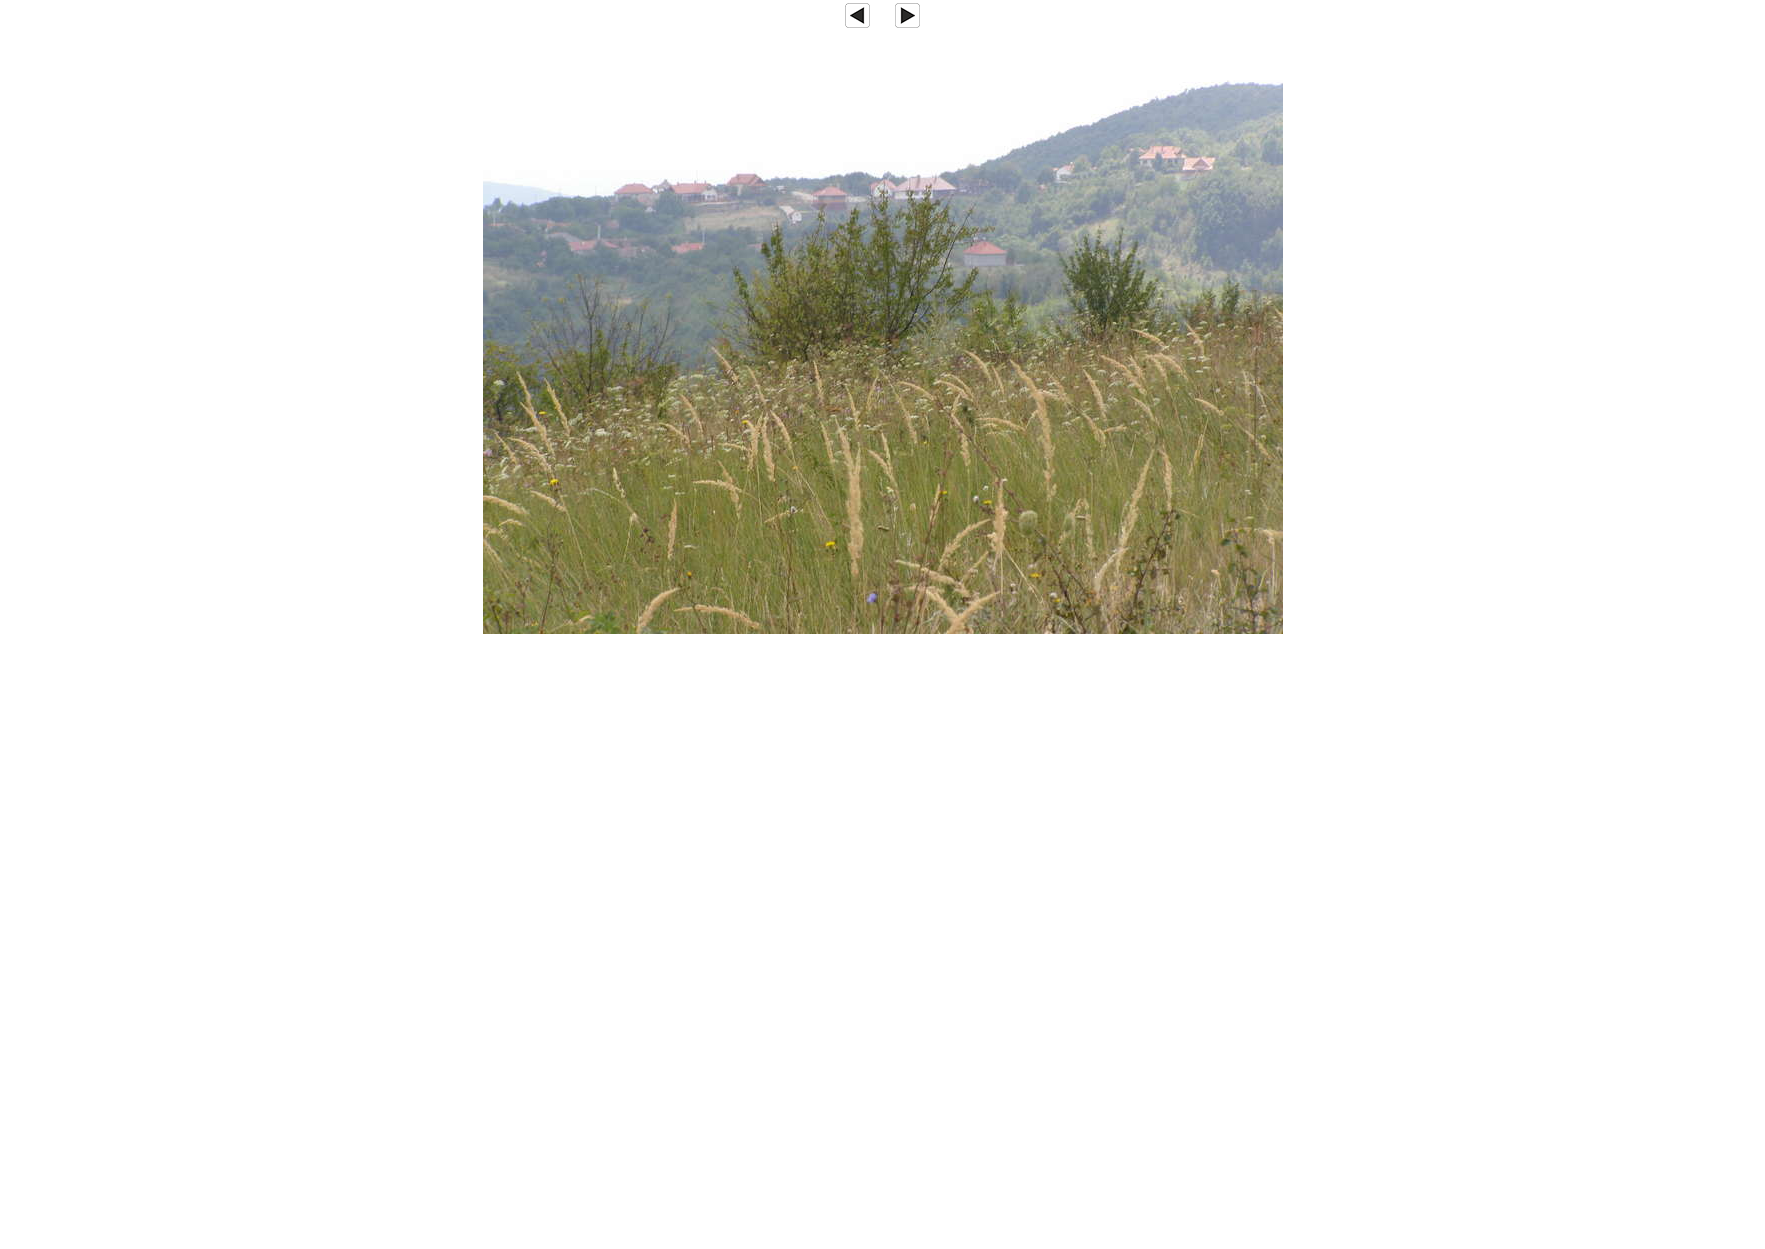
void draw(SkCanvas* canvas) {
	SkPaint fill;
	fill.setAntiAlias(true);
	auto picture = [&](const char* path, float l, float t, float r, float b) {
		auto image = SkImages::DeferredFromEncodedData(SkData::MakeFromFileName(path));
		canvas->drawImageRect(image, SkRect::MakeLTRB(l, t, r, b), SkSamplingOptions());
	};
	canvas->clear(0xFFFFFFFF);
	picture("image0.png", 845, 3, 870, 28);
	picture("image1.png", 895, 3, 920, 28);
	picture("image2.png", 483, 80, 1283, 634);
}
